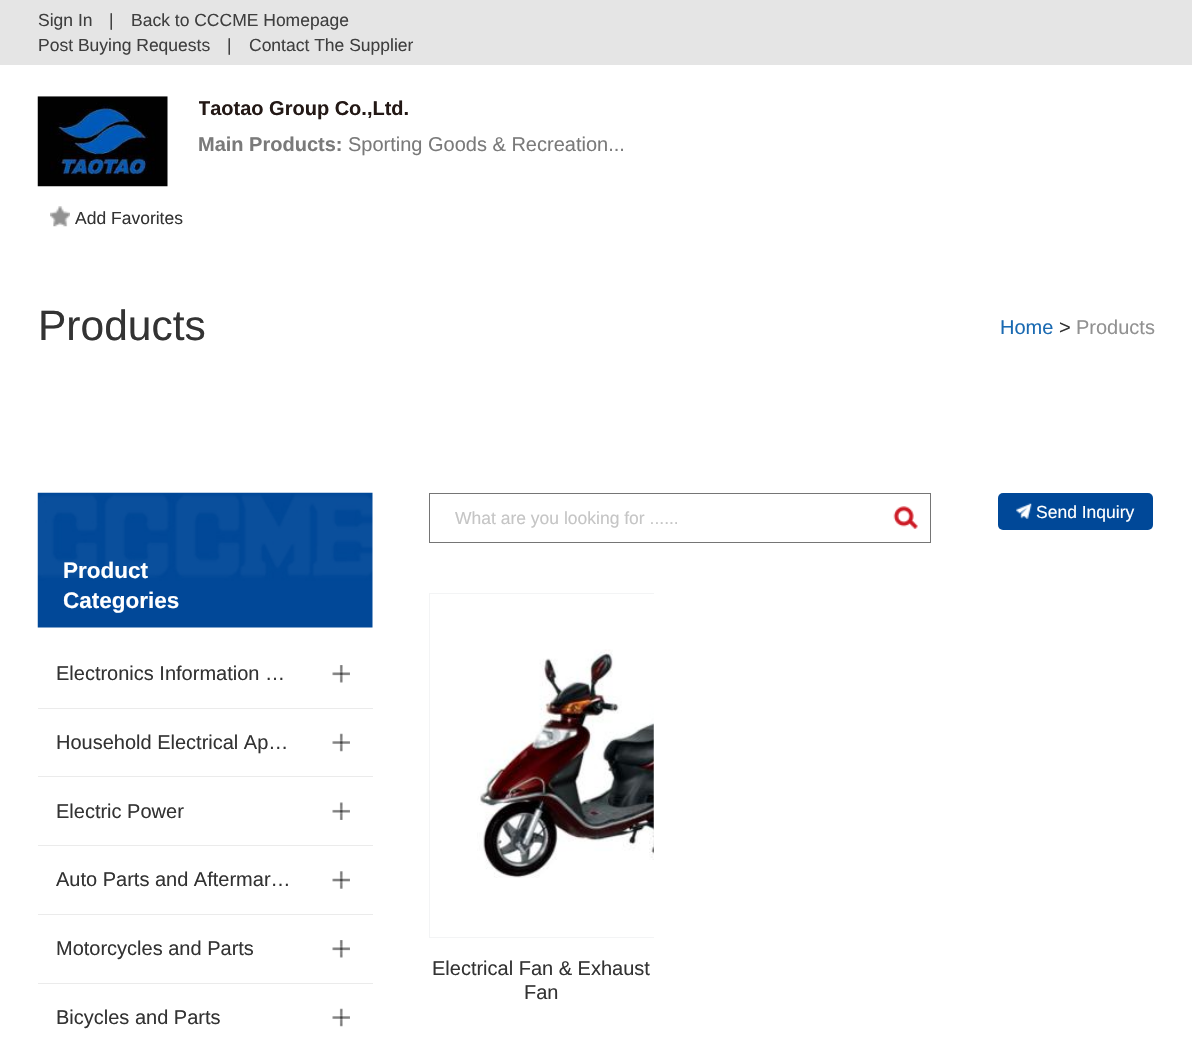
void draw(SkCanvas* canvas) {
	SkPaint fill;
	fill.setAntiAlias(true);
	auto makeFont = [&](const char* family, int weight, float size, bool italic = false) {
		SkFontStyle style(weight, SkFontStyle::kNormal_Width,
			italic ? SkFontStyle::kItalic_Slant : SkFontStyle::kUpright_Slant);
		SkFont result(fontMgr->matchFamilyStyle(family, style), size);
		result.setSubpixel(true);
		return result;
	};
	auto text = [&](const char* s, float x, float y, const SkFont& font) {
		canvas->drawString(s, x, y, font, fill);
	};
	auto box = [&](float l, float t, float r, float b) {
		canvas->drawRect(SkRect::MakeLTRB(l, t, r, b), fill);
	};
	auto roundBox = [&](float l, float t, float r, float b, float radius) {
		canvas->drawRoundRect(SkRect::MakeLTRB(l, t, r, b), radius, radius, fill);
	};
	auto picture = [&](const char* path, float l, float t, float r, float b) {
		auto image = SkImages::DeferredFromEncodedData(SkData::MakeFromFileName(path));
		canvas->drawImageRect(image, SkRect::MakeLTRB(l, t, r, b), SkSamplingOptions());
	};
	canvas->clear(0xFFFFFFFF);
	fill.setColor(0xFFE5E5E5);
	box(0, 0, 1192, 65);
	picture("image0.png", 37, 96, 168, 187);
	picture("image1.png", 50, 206, 70, 227);
	picture("image2.png", 37, 492, 373, 628);
	fill.setColor(0xFFEBEBEB);
	box(38, 708, 373, 709);
	picture("image3.png", 332, 665, 350, 683);
	box(38, 776, 373, 777);
	picture("image4.png", 332, 733, 350, 752);
	box(38, 845, 373, 846);
	picture("image5.png", 332, 802, 350, 820);
	box(38, 914, 373, 915);
	picture("image6.png", 332, 871, 350, 889);
	box(38, 983, 373, 984);
	picture("image3.png", 332, 940, 350, 958);
	picture("image4.png", 332, 1008, 350, 1027);
	fill.setStyle(SkPaint::kStroke_Style);
	fill.setStrokeWidth(1);
	fill.setColor(0xFF757575);
	canvas->drawRect(SkRect::MakeLTRB(429.5f, 493.5f, 930.5f, 542.5f), fill);
	picture("image7.png", 893, 506, 918, 529);
	fill.setStyle(SkPaint::kFill_Style);
	fill.setColor(0xFF004898);
	roundBox(998, 493, 1153, 530, 5);
	picture("image8.png", 1016, 503, 1032, 519);
	canvas->save();
	canvas->clipRect(SkRect::MakeLTRB(429, 593, 654, 938));
	fill.setStyle(SkPaint::kStroke_Style);
	fill.setColor(0xFFF3F4F5);
	canvas->drawRect(SkRect::MakeLTRB(429.5f, 593.5f, 773.5f, 937.5f), fill);
	canvas->restore();
	picture("image9.png", 477, 649, 654, 878);
	auto font1 = makeFont("Liberation Sans", 400, 17.5f);
	fill.setStyle(SkPaint::kFill_Style);
	fill.setColor(0xFF3F3F3F);
	text("Sign In", 38, 26, font1);
	text("|", 109, 26, font1);
	text("Back to CCCME Homepage", 131, 26, font1);
	text("Post Buying Requests", 38, 51, font1);
	text("|", 227, 51, font1);
	text("Contact The Supplier", 249, 51, font1);
	canvas->save();
	canvas->clipRect(SkRect::MakeLTRB(199, 96, 713, 120));
	auto font2 = makeFont("Liberation Sans", 700, 20);
	fill.setColor(0xFF231815);
	text("Taotao Group Co.,Ltd.", 198, 115, font2);
	canvas->restore();
	fill.setColor(0xFF7A7A7A);
	text("Main Products:", 198, 151, font2);
	auto font3 = makeFont("Liberation Sans", 400, 20);
	text("Sporting Goods & Recreation...", 348, 151, font3);
	fill.setColor(0xFF333333);
	text("Add Favorites", 75, 224, font1);
	auto font4 = makeFont("Liberation Sans", 400, 42.5f);
	text("Products", 38, 340, font4);
	fill.setColor(0xFF1A6AB2);
	text("Home", 1000, 334, font3);
	fill.setColor(0xFF333333);
	text(">", 1059, 334, font3);
	fill.setColor(0xFF919191);
	text("Products", 1076, 334, font3);
	auto font5 = makeFont("Liberation Sans", 700, 22.5f);
	fill.setColor(0xFFFFFFFF);
	text("Product", 63, 578, font5);
	text("Categories", 63, 608, font5);
	fill.setColor(0xFF333333);
	text("Electronics Information …", 56, 680, font3);
	text("Household Electrical Ap…", 56, 749, font3);
	text("Electric Power", 56, 818, font3);
	text("Auto Parts and Aftermar…", 56, 886, font3);
	text("Motorcycles and Parts", 56, 955, font3);
	text("Bicycles and Parts", 56, 1024, font3);
	fill.setColor(0xFFC5C5C5);
	text("What are you looking for ......", 455, 524, font1);
	fill.setColor(0xFFFFFFFF);
	text("Send Inquiry", 1036, 518, font1);
	fill.setColor(0xFF333333);
	text("Electrical Fan & Exhaust", 432, 975, font3);
	text("Fan", 524, 999, font3);
}
